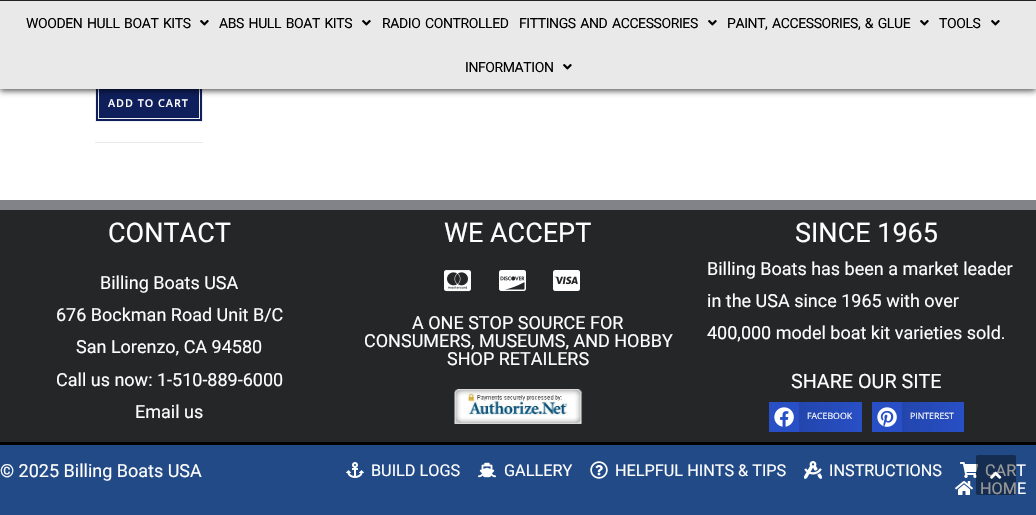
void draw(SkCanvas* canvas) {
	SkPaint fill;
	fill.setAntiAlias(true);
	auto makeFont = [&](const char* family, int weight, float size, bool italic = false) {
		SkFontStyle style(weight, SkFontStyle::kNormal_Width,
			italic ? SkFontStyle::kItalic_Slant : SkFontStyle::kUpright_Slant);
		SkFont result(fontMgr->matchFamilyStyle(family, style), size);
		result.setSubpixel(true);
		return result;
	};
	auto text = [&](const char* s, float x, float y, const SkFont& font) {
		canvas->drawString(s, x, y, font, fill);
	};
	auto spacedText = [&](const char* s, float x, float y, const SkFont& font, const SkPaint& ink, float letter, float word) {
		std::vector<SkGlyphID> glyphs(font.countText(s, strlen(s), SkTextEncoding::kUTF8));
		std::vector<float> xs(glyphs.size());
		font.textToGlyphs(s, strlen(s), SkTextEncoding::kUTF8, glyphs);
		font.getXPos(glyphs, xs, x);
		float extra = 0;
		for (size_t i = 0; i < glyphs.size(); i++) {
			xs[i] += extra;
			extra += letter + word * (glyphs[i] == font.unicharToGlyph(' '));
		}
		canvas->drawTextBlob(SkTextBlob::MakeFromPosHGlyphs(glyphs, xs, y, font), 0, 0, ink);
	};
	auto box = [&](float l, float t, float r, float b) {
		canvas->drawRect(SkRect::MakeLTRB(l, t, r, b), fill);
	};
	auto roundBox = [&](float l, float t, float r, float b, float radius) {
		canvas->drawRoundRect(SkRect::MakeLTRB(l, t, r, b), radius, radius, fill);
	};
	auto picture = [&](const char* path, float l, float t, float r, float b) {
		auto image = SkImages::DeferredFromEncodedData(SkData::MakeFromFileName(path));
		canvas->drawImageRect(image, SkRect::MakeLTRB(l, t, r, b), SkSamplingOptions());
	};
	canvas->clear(0xFFFFFFFF);
	fill.setColor(0xFF0F1F5B);
	box(96, 89, 202, 121);
	fill.setStyle(SkPaint::kStroke_Style);
	fill.setStrokeWidth(1);
	fill.setColor(0xFFF1F1F1);
	canvas->drawRect(SkRect::MakeLTRB(95.5f, 85.5f, 202.5f, 121.5f), fill);
	canvas->drawRect(SkRect::MakeLTRB(98.5f, 88.5f, 199.5f, 118.5f), fill);
	fill.setStyle(SkPaint::kFill_Style);
	fill.setColor(0xA8000000);
	fill.setMaskFilter(SkMaskFilter::MakeBlur(kNormal_SkBlurStyle, 3));
	canvas->drawRect(SkRect::MakeLTRB(0, 2, 1036, 91), fill);
	fill.setMaskFilter(nullptr);
	fill.setColor(0xFFE9E9E9);
	box(0, 1, 1036, 89);
	fill.setColor(0xFF212121);
	box(0, 0, 1036, 1);
	picture("image0.png", 200, 20, 209, 26);
	picture("image0.png", 362, 20, 371, 26);
	picture("image0.png", 708, 20, 717, 26);
	picture("image0.png", 920, 20, 929, 26);
	picture("image0.png", 991, 20, 1000, 26);
	picture("image0.png", 563, 64, 572, 70);
	fill.setColor(0xFFEAEAEA);
	box(95, 142, 203, 143);
	fill.setColor(0xFF242628);
	box(0, 210, 1036, 442);
	fill.setColor(0xFF818389);
	box(0, 200, 1036, 210);
	picture("image1.png", 444, 270, 471, 292);
	picture("image2.png", 499, 270, 526, 291);
	picture("image3.png", 553, 270, 580, 291);
	picture("image4.png", 454, 389, 583, 424);
	fill.setColor(0xFF284FC5);
	box(769, 402, 799, 432);
	picture("image5.png", 774, 407, 794, 427);
	{
		const SkColor colors[] = {0xFF2346AD, 0xFF284FC5};
		const float stops[] = {0, 1};
		const SkPoint ends[] = {{799, 417}, {862, 417}};
		fill.setShader(SkGradientShader::MakeLinear(ends, colors, stops, 2, SkTileMode::kClamp));
		fill.setAlpha(255);
	}
	box(799, 402, 862, 432);
	fill.setShader(nullptr);
	fill.setColor(0xFF284FC5);
	box(872, 402, 902, 432);
	picture("image6.png", 877, 407, 897, 427);
	{
		const SkColor colors[] = {0xFF2346AD, 0xFF284FC5};
		const float stops[] = {0, 1};
		const SkPoint ends[] = {{902, 417}, {964, 417}};
		fill.setShader(SkGradientShader::MakeLinear(ends, colors, stops, 2, SkTileMode::kClamp));
		fill.setAlpha(255);
	}
	box(902, 402, 964, 432);
	fill.setShader(nullptr);
	fill.setColor(0xFF224A86);
	box(0, 445, 1036, 515);
	fill.setColor(0xFF000000);
	box(0, 442, 1036, 445);
	picture("image7.png", 346, 462, 364, 478);
	picture("image8.png", 478, 462, 496, 478);
	picture("image9.png", 590, 461, 608, 479);
	picture("image10.png", 804, 461, 822, 479);
	picture("image11.png", 960, 462, 978, 478);
	picture("image12.png", 955, 481, 973, 495);
	auto font1 = makeFont("Roboto", 400, 14);
	spacedText("WOODEN HULL BOAT KITS", 26, 28, font1, fill, -0.4f, 1.5f);
	spacedText("ABS HULL BOAT KITS", 219, 28, font1, fill, -0.4f, 1.5f);
	spacedText("RADIO CONTROLLED", 382, 28, font1, fill, -0.4f, 1.5f);
	spacedText("FITTINGS AND ACCESSORIES", 519, 28, font1, fill, -0.4f, 1.5f);
	spacedText("PAINT, ACCESSORIES, & GLUE", 727, 28, font1, fill, -0.4f, 1.5f);
	spacedText("TOOLS", 939, 28, font1, fill, -0.4f, 0);
	spacedText("INFORMATION", 465, 72, font1, fill, -0.4f, 0);
	auto font2 = makeFont("Open Sans", 600, 10.75f);
	fill.setColor(0xFFFFFFFF);
	spacedText("ADD TO CART", 108, 107, font2, fill, 1, 0);
	auto font3 = makeFont("Roboto", 400, 27);
	text("CONTACT", 108, 242, font3);
	auto font4 = makeFont("Roboto", 400, 18);
	text("Billing Boats USA", 100, 289, font4);
	text("676 Bockman Road Unit B/C", 56, 321, font4);
	text("San Lorenzo, CA 94580", 76, 353, font4);
	text("Call us now: 1-510-889-6000", 56, 386, font4);
	text("Email us", 135, 418, font4);
	text("WE ACCEPT", 444, 242, font3);
	text("A ONE STOP SOURCE FOR", 412, 329, font4);
	text("CONSUMERS, MUSEUMS, AND HOBBY", 364, 347, font4);
	text("SHOP RETAILERS", 447, 365, font4);
	text("SINCE 1965", 795, 242, font3);
	text("Billing Boats has been a market leader", 707, 275, font4);
	text("in the USA since 1965 with over", 707, 307, font4);
	text("400,000 model boat kit varieties sold.", 707, 339, font4);
	auto font5 = makeFont("Roboto", 400, 19.75f);
	text("SHARE OUR SITE", 791, 388, font5);
	auto font6 = makeFont("Open Sans", 400, 8.75f);
	text("FACEBOOK", 807, 419, font6);
	text("PINTEREST", 910, 419, font6);
	text("© 2025 Billing Boats USA", 0, 477, font4);
	auto font7 = makeFont("Roboto", 400, 16.25f);
	text("BUILD LOGS", 371, 476, font7);
	text("GALLERY", 504, 476, font7);
	text("HELPFUL HINTS & TIPS", 615, 476, font7);
	text("INSTRUCTIONS", 829, 476, font7);
	text("CART", 985, 476, font7);
	text("HOME", 980, 494, font7);
	fill.setColor(0x66000000);
	roundBox(976, 455, 1016, 495, 2);
	picture("image13.png", 990, 471, 1002, 479);
}
